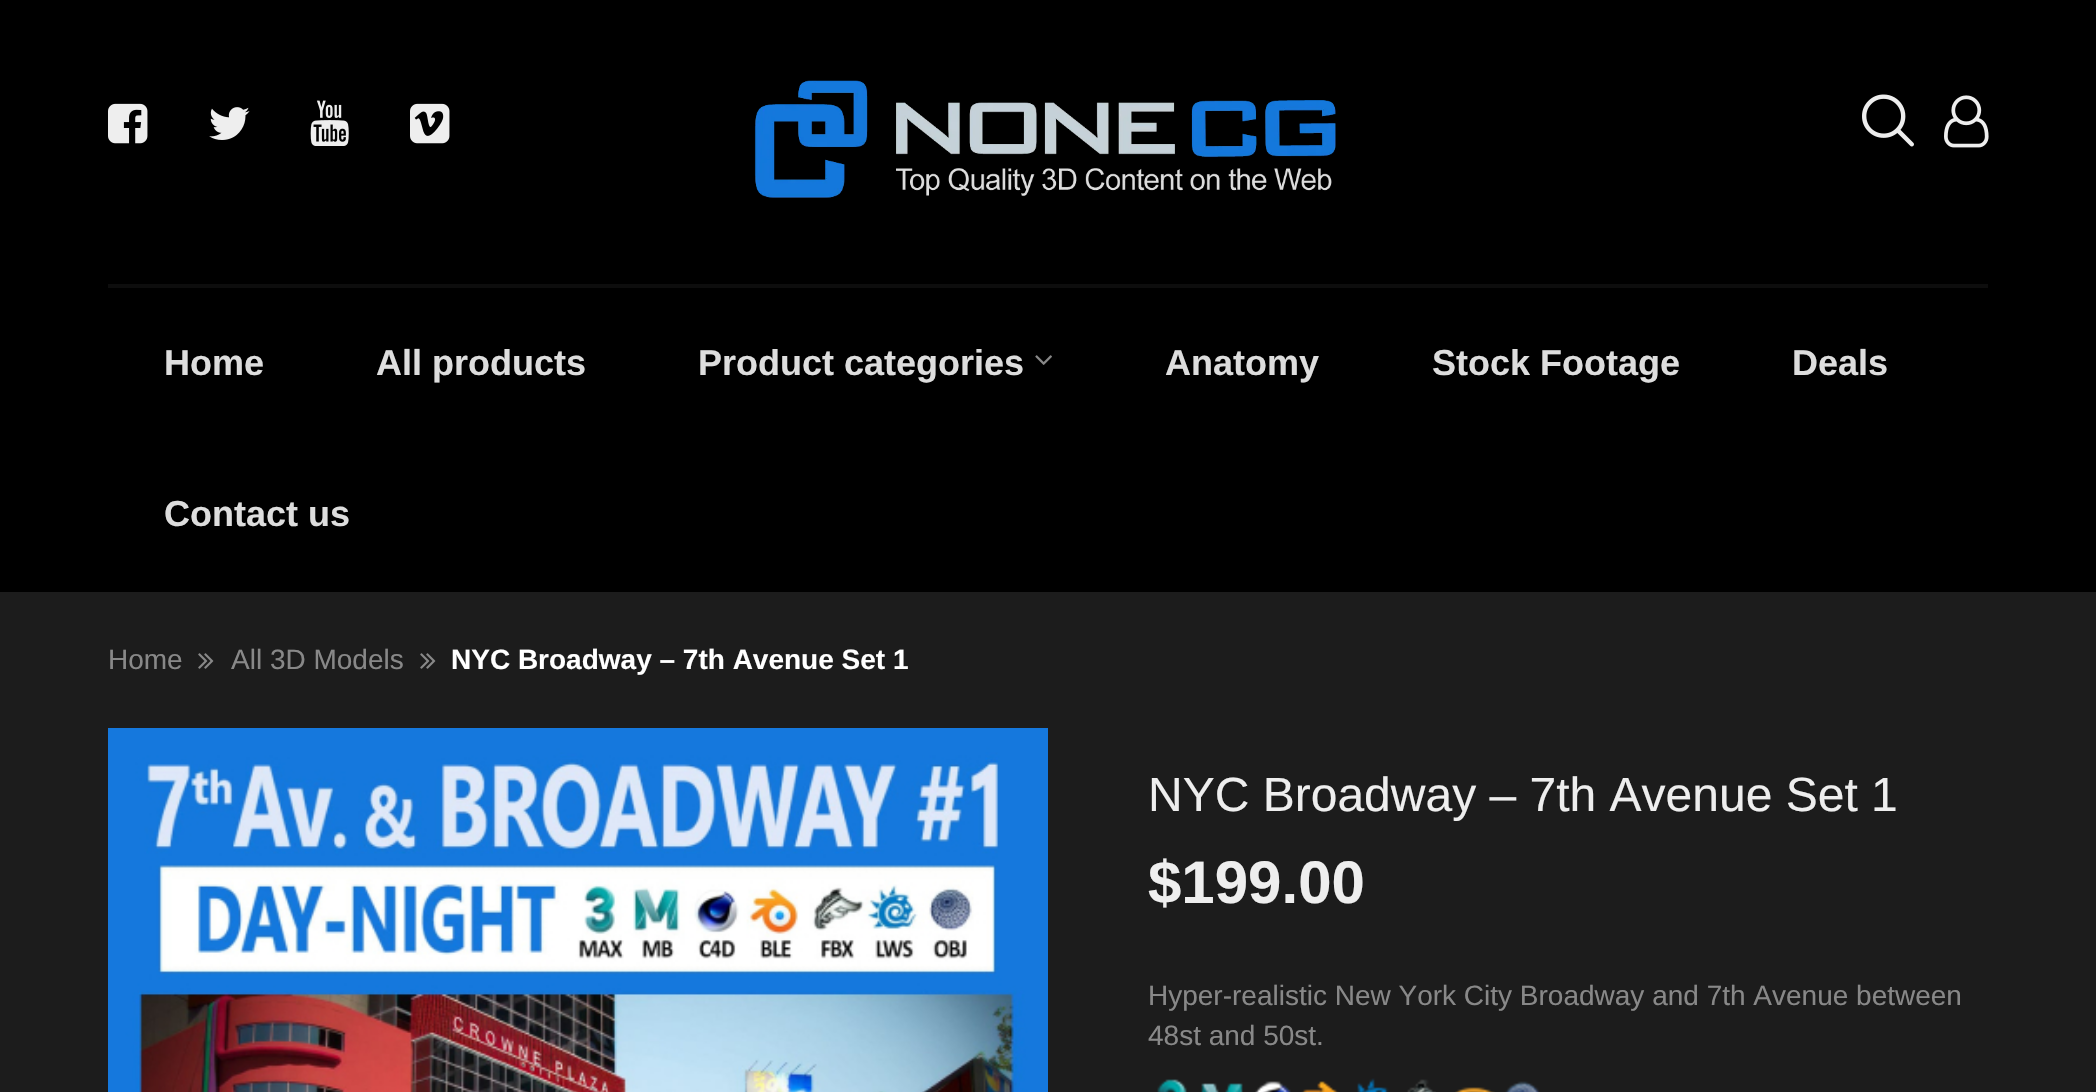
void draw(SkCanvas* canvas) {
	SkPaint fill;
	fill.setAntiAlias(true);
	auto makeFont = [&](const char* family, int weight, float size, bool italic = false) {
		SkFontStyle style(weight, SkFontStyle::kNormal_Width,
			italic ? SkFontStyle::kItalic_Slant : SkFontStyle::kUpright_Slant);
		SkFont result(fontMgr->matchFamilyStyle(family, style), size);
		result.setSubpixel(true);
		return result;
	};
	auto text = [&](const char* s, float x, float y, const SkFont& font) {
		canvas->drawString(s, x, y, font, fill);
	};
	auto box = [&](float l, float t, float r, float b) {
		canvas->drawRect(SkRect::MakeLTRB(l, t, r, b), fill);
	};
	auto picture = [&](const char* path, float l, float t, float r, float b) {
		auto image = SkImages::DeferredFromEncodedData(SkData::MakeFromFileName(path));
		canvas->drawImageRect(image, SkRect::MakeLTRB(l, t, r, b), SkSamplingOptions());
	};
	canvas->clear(0xFF000000);
	picture("image0.png", 108, 103, 148, 144);
	picture("image1.png", 209, 107, 250, 140);
	picture("image2.png", 310, 100, 349, 146);
	picture("image3.png", 410, 103, 450, 144);
	picture("image4.png", 754, 80, 1336, 198);
	picture("image5.png", 1862, 94, 1914, 147);
	picture("image6.png", 1944, 95, 1989, 148);
	fill.setColor(0xFF0D0D0D);
	box(108, 284, 1988, 288);
	picture("image7.png", 1035, 355, 1052, 365);
	fill.setColor(0xFF1C1C1C);
	box(0, 592, 2096, 1092);
	picture("image8.png", 198, 653, 214, 669);
	picture("image8.png", 420, 653, 436, 669);
	picture("image9.png", 108, 728, 1048, 1092);
	picture("image10.png", 1157, 1079, 1187, 1092);
	picture("image11.png", 1201, 1083, 1243, 1092);
	picture("image12.png", 1255, 1081, 1291, 1092);
	picture("image13.png", 1301, 1081, 1339, 1092);
	picture("image14.png", 1357, 1078, 1389, 1092);
	picture("image15.png", 1407, 1079, 1436, 1092);
	picture("image16.png", 1455, 1087, 1495, 1092);
	picture("image17.png", 1505, 1081, 1540, 1092);
	auto font1 = makeFont("Liberation Sans", 700, 36);
	fill.setColor(0xFFDDDDDD);
	text("Home", 164, 375, font1);
	text("All products", 376, 375, font1);
	text("Product categories", 698, 375, font1);
	text("Anatomy", 1165, 375, font1);
	text("Stock Footage", 1432, 375, font1);
	text("Deals", 1792, 375, font1);
	text("Contact us", 164, 526, font1);
	auto font2 = makeFont("Liberation Sans", 400, 28);
	fill.setColor(0xFF888888);
	text("Home", 108, 669, font2);
	text("All 3D Models", 231, 669, font2);
	auto font3 = makeFont("Liberation Sans", 700, 28);
	fill.setColor(0xFFFFFFFF);
	text("NYC Broadway – 7th Avenue Set 1", 451, 669, font3);
	auto font4 = makeFont("Liberation Sans", 400, 48);
	fill.setColor(0xFFEEEEEE);
	text("NYC Broadway – 7th Avenue Set 1", 1148, 811, font4);
	auto font5 = makeFont("Liberation Sans", 700, 60);
	text("$199.00", 1148, 903, font5);
	fill.setColor(0xFF888888);
	text("Hyper-realistic New York City Broadway and 7th Avenue between", 1148, 1005, font2);
	text("48st and 50st.", 1148, 1045, font2);
}
